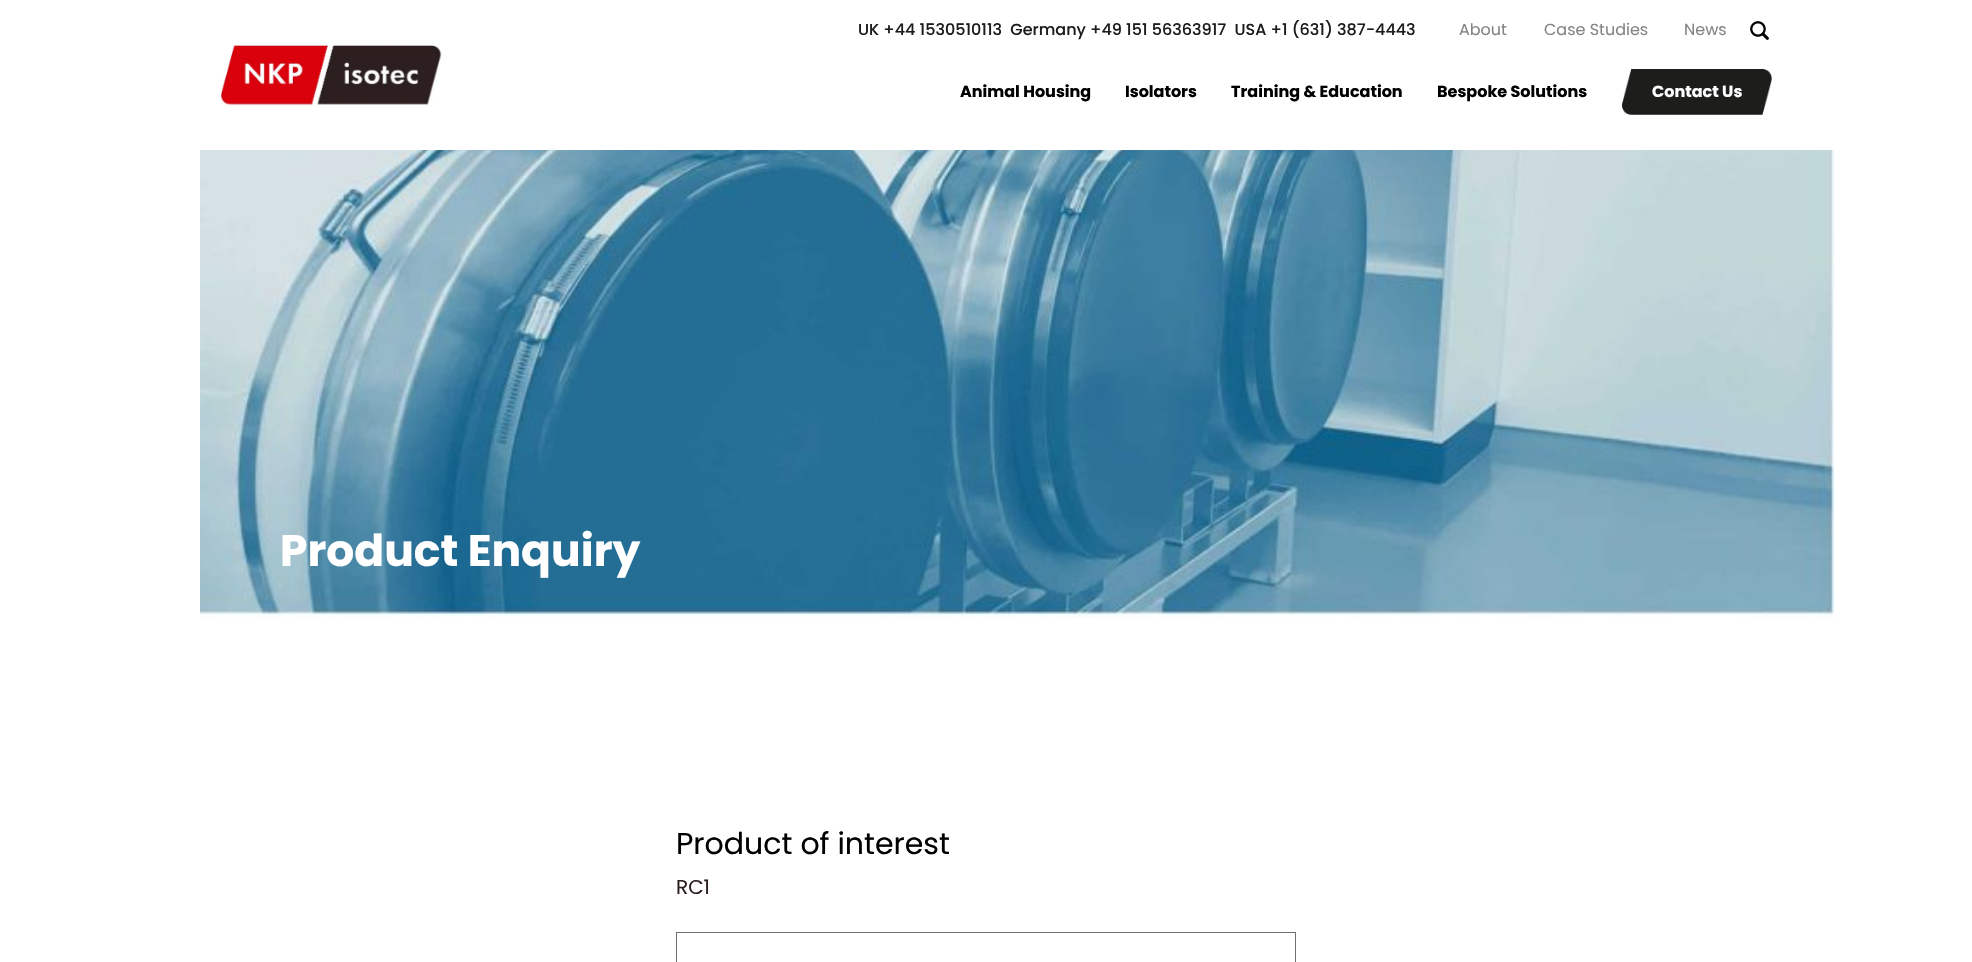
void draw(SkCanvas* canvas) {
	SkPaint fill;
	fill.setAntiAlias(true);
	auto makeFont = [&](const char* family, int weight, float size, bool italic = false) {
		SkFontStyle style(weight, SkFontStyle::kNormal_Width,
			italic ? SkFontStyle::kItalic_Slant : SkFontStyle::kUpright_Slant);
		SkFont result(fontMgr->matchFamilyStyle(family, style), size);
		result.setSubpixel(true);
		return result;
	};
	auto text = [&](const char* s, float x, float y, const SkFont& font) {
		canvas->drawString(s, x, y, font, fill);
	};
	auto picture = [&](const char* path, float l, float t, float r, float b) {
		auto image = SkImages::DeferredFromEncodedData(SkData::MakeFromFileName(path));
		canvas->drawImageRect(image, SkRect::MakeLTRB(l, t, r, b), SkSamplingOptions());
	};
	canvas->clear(0xFFFFFFFF);
	picture("image0.png", 1750, 21, 1769, 40);
	picture("image1.png", 200, 150, 1835, 619);
	fill.setStyle(SkPaint::kStroke_Style);
	fill.setStrokeWidth(1);
	fill.setColor(0xFF707070);
	canvas->drawRect(SkRect::MakeLTRB(676.5f, 932.5f, 1295.5f, 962.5f), fill);
	picture("image2.png", 218, 44, 442, 107);
	picture("image3.png", 1622, 69, 1772, 115);
	auto font1 = makeFont("Poppins", 500, 16);
	fill.setStyle(SkPaint::kFill_Style);
	fill.setColor(0xFF1D1D1B);
	text("UK +44 1530510113  Germany +49 151 56363917  USA +1 (631) 387-4443", 858, 35, font1);
	auto font2 = makeFont("Poppins", 400, 16);
	fill.setColor(0xFF848484);
	text("About", 1459, 35, font2);
	text("Case Studies", 1544, 35, font2);
	text("News", 1684, 35, font2);
	auto font3 = makeFont("Poppins", 700, 44);
	fill.setColor(0xFFFFFFFF);
	text("Product Enquiry", 280, 566, font3);
	auto font4 = makeFont("Poppins", 400, 30);
	fill.setColor(0xFF000000);
	text("Product of interest", 676, 854, font4);
	auto font5 = makeFont("Poppins", 400, 20);
	fill.setColor(0xFF2C201F);
	text("RC1", 676, 894, font5);
	auto font6 = makeFont("Poppins", 700, 16);
	fill.setColor(0xFF000000);
	text("Animal Housing", 960, 97, font6);
	text("Isolators", 1125, 97, font6);
	text("Training & Education", 1231, 97, font6);
	text("Bespoke Solutions", 1437, 97, font6);
	fill.setColor(0xFFFFFFFF);
	text("Contact Us", 1652, 97, font6);
}
